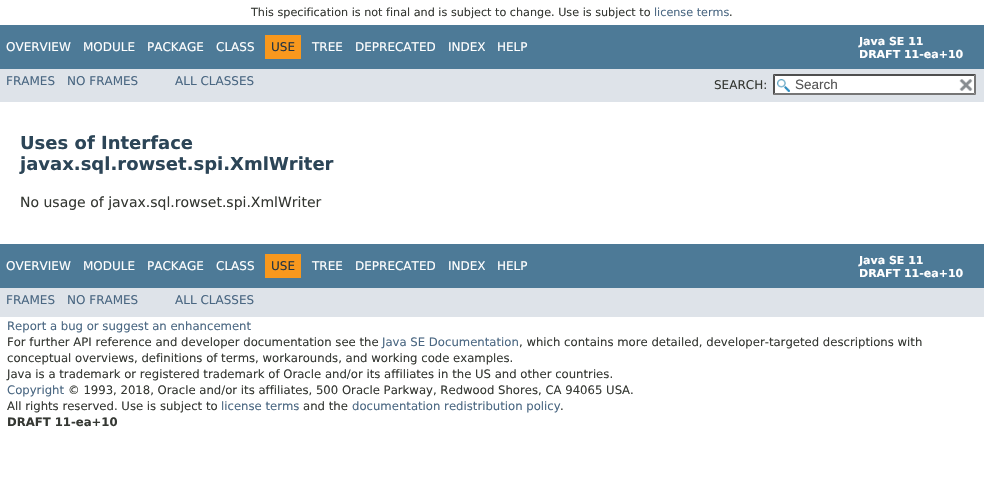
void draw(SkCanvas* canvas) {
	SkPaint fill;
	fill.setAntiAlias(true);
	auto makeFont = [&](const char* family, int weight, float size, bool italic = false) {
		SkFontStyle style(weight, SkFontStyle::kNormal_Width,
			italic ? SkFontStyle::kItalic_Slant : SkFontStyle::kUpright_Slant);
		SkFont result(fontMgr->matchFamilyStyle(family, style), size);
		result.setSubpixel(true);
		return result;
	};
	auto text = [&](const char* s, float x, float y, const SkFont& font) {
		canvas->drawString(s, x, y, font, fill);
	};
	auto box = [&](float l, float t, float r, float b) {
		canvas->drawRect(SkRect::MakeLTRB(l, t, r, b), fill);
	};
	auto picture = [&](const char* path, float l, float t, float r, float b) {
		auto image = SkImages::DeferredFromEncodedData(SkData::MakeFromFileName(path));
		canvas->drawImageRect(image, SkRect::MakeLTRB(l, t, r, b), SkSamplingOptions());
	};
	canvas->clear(0xFFFFFFFF);
	fill.setColor(0xFF4D7A97);
	box(0, 25, 984, 69);
	fill.setColor(0xFFF8981D);
	box(265, 35, 301, 59);
	fill.setColor(0xFFDEE3E9);
	box(0, 69, 984, 102);
	fill.setColor(0xFFFFFFFF);
	box(773, 74, 976, 95);
	picture("image0.png", 777, 79, 790, 92);
	fill.setColor(0xFF4F4F4F);
	canvas->drawPath(SkPathBuilder().moveTo(773, 74).lineTo(976, 74).lineTo(974, 76).lineTo(775, 76).close().detach(), fill);
	fill.setColor(0xFF767676);
	canvas->drawPath(SkPathBuilder().moveTo(976, 74).lineTo(976, 95).lineTo(974, 93).lineTo(974, 76).close().detach(), fill);
	canvas->drawPath(SkPathBuilder().moveTo(976, 95).lineTo(773, 95).lineTo(775, 93).lineTo(974, 93).close().detach(), fill);
	fill.setColor(0xFF4F4F4F);
	canvas->drawPath(SkPathBuilder().moveTo(773, 95).lineTo(773, 74).lineTo(775, 76).lineTo(775, 93).close().detach(), fill);
	picture("image1.png", 959, 79, 973, 91);
	fill.setColor(0xFF4D7A97);
	box(0, 244, 984, 288);
	fill.setColor(0xFFF8981D);
	box(265, 254, 301, 278);
	fill.setColor(0xFFDEE3E9);
	box(0, 288, 984, 317);
	auto font1 = makeFont("DejaVu Sans", 400, 11.2f);
	fill.setColor(0xFF353833);
	text("This specification is not final and is subject to change. Use is subject to", 251, 16, font1);
	fill.setColor(0xFF4A6782);
	text("license terms", 654, 16, font1);
	fill.setColor(0xFF353833);
	text(".", 729, 16, font1);
	auto font2 = makeFont("DejaVu Sans", 400, 12);
	fill.setColor(0xFFFFFFFF);
	text("OVERVIEW", 6, 51, font2);
	text("MODULE", 83, 51, font2);
	text("PACKAGE", 147, 51, font2);
	text("CLASS", 216, 51, font2);
	fill.setColor(0xFF253441);
	text("USE", 271, 51, font2);
	fill.setColor(0xFFFFFFFF);
	text("TREE", 312, 51, font2);
	text("DEPRECATED", 355, 51, font2);
	text("INDEX", 448, 51, font2);
	text("HELP", 497, 51, font2);
	auto font3 = makeFont("DejaVu Sans", 700, 11);
	text("Java SE 11", 859, 45, font3);
	text("DRAFT 11-ea+10", 859, 58, font3);
	fill.setColor(0xFF4A6782);
	text("FRAMES", 6, 85, font2);
	text("NO FRAMES", 67, 85, font2);
	text("ALL CLASSES", 175, 85, font2);
	fill.setColor(0xFF353833);
	text("SEARCH:", 714, 89, font2);
	auto font4 = makeFont("Liberation Sans", 400, 13.5f);
	fill.setColor(0xFF545454);
	text("Search", 795, 89, font4);
	auto font5 = makeFont("DejaVu Sans", 700, 18);
	fill.setColor(0xFF2C4557);
	text("Uses of Interface", 20, 149, font5);
	text("javax.sql.rowset.spi.XmlWriter", 20, 170, font5);
	auto font6 = makeFont("DejaVu Sans", 400, 14);
	fill.setColor(0xFF353833);
	text("No usage of javax.sql.rowset.spi.XmlWriter", 20, 207, font6);
	fill.setColor(0xFFFFFFFF);
	text("OVERVIEW", 6, 270, font2);
	text("MODULE", 83, 270, font2);
	text("PACKAGE", 147, 270, font2);
	text("CLASS", 216, 270, font2);
	fill.setColor(0xFF253441);
	text("USE", 271, 270, font2);
	fill.setColor(0xFFFFFFFF);
	text("TREE", 312, 270, font2);
	text("DEPRECATED", 355, 270, font2);
	text("INDEX", 448, 270, font2);
	text("HELP", 497, 270, font2);
	text("Java SE 11", 859, 264, font3);
	text("DRAFT 11-ea+10", 859, 277, font3);
	fill.setColor(0xFF4A6782);
	text("FRAMES", 6, 304, font2);
	text("NO FRAMES", 67, 304, font2);
	text("ALL CLASSES", 175, 304, font2);
	auto font7 = makeFont("DejaVu Sans", 400, 11.67f);
	text("Report a bug or suggest an enhancement", 7, 330, font7);
	fill.setColor(0xFF353833);
	text("For further API reference and developer documentation see the", 7, 346, font7);
	fill.setColor(0xFF4A6782);
	text("Java SE Documentation", 382, 346, font7);
	fill.setColor(0xFF353833);
	text(", which contains more detailed, developer-targeted descriptions with", 519, 346, font7);
	text("conceptual overviews, definitions of terms, workarounds, and working code examples.", 7, 362, font7);
	text("Java is a trademark or registered trademark of Oracle and/or its affiliates in the US and other countries.", 7, 378, font7);
	fill.setColor(0xFF4A6782);
	text("Copyright", 7, 394, font7);
	fill.setColor(0xFF353833);
	text("© 1993, 2018, Oracle and/or its affiliates, 500 Oracle Parkway, Redwood Shores, CA 94065 USA.", 68, 394, font7);
	text("All rights reserved. Use is subject to", 7, 410, font7);
	fill.setColor(0xFF4A6782);
	text("license terms", 221, 410, font7);
	fill.setColor(0xFF353833);
	text("and the", 303, 410, font7);
	fill.setColor(0xFF4A6782);
	text("documentation redistribution policy", 352, 410, font7);
	fill.setColor(0xFF353833);
	text(".", 560, 410, font7);
	auto font8 = makeFont("DejaVu Sans", 700, 11.67f);
	text("DRAFT 11-ea+10", 7, 426, font8);
}
